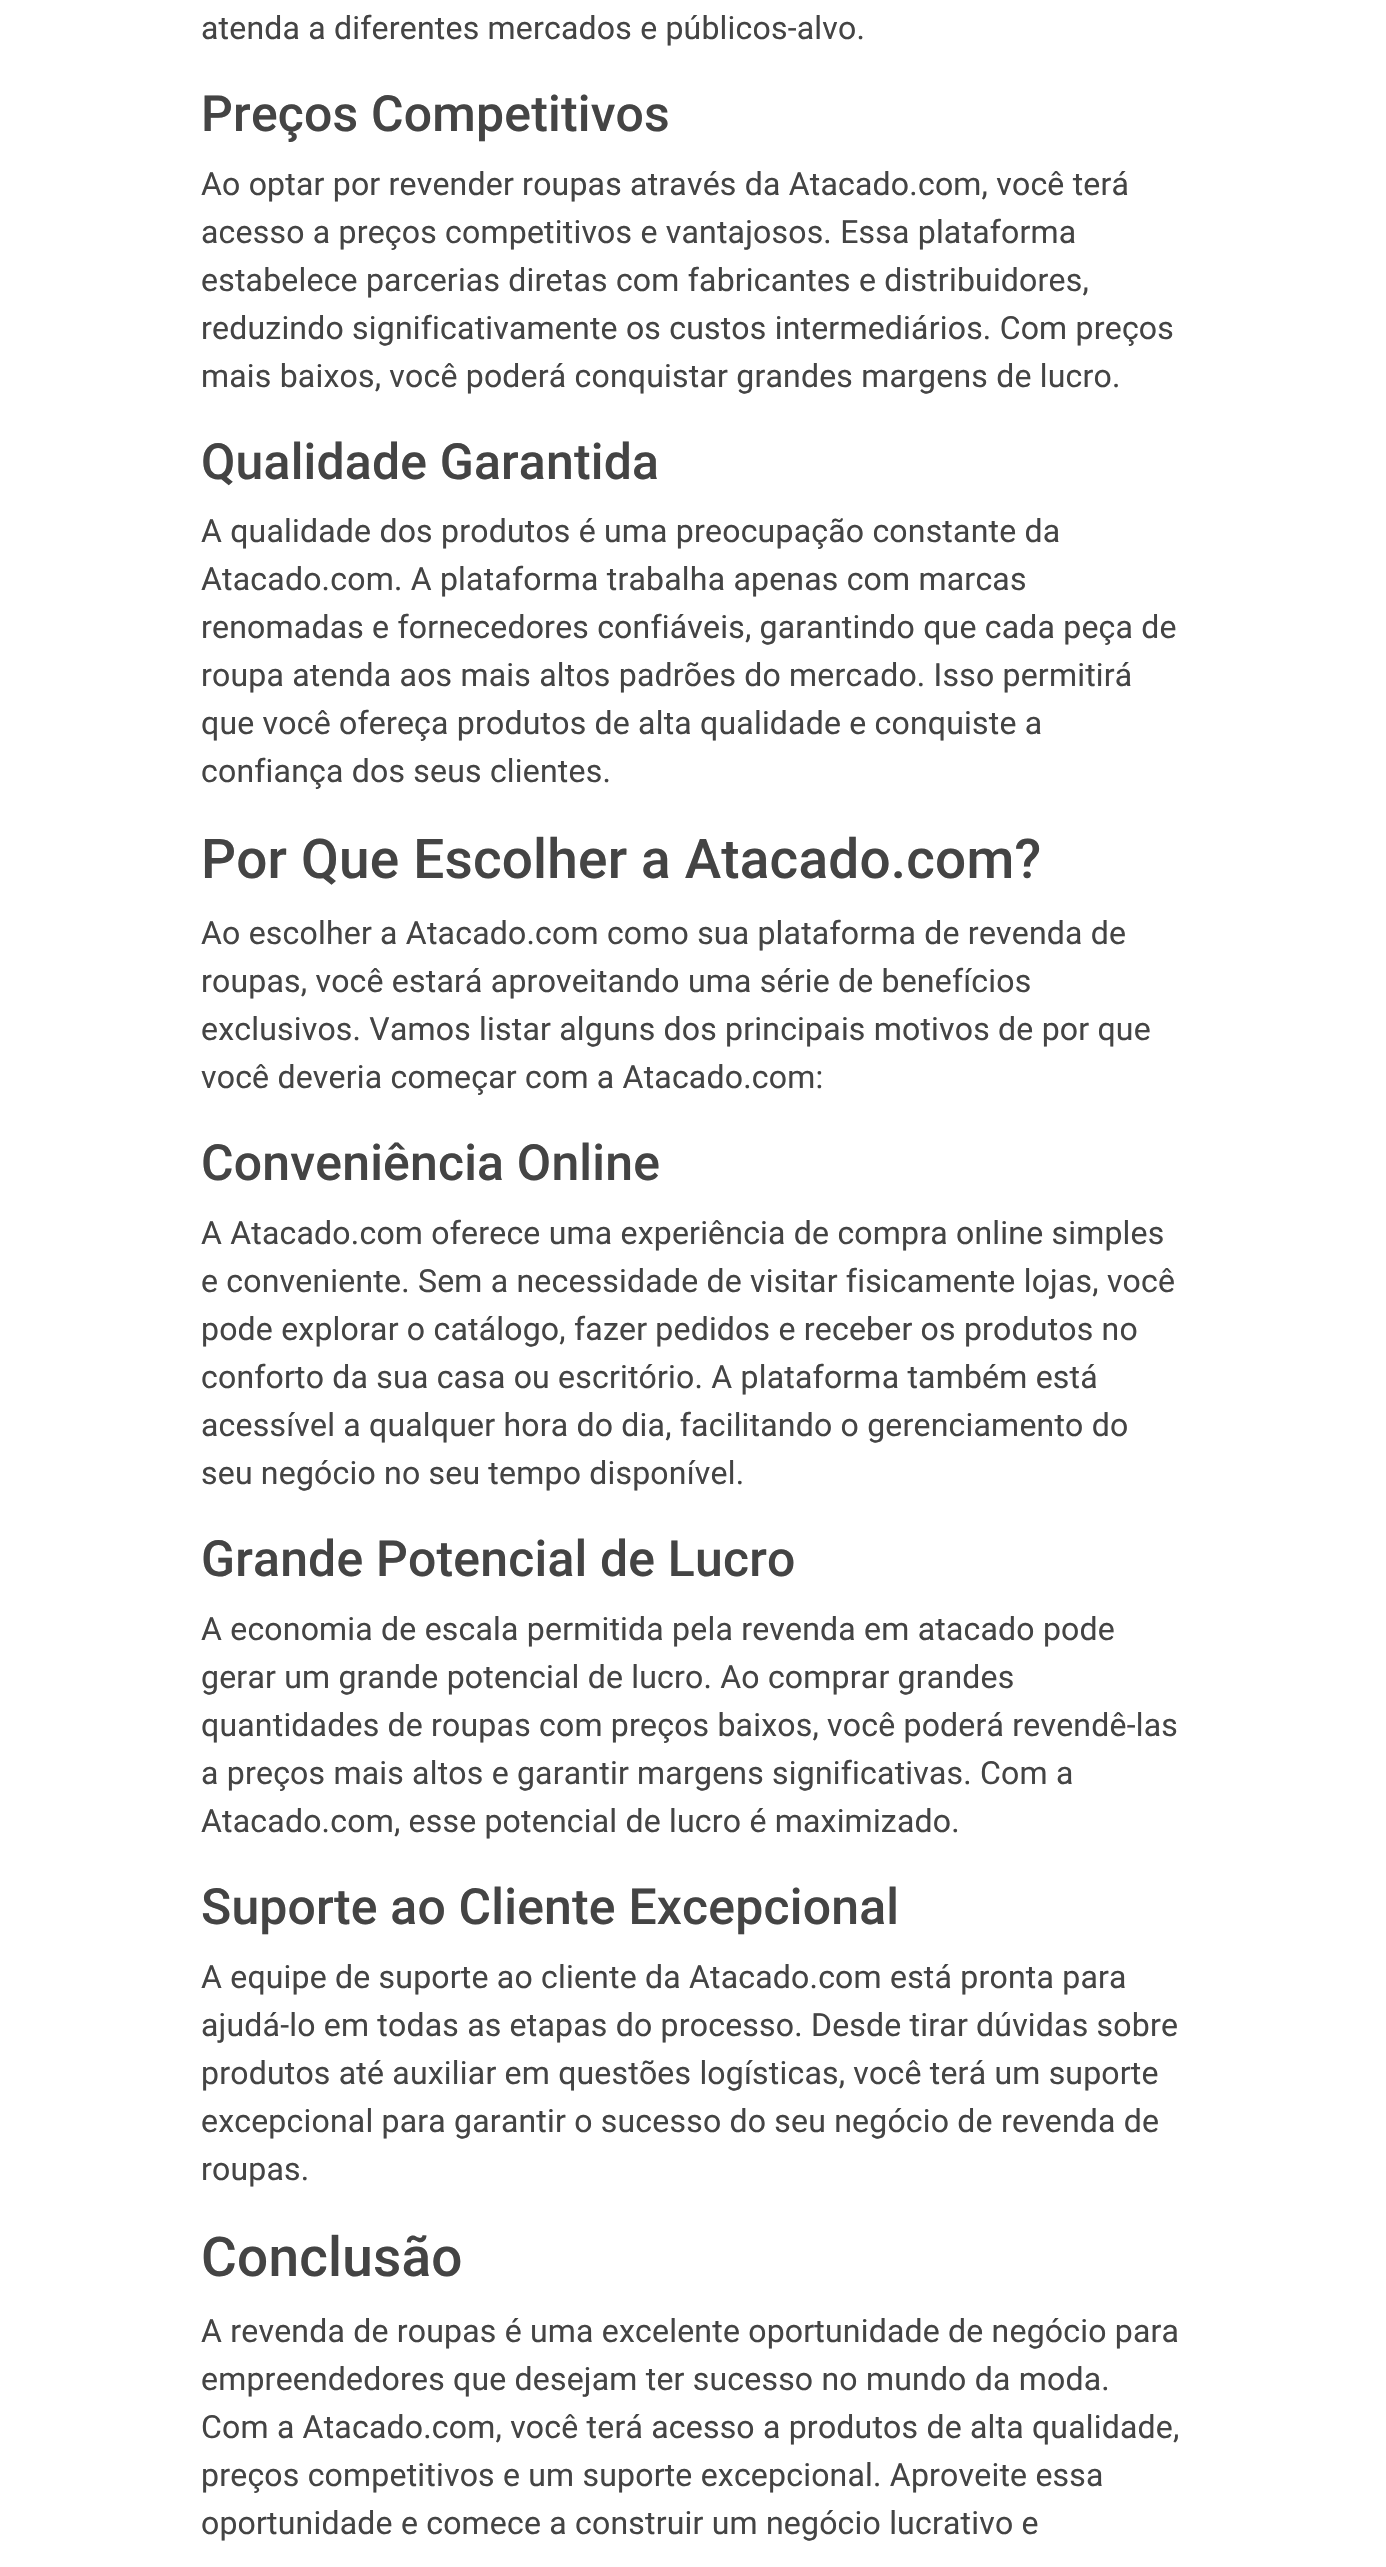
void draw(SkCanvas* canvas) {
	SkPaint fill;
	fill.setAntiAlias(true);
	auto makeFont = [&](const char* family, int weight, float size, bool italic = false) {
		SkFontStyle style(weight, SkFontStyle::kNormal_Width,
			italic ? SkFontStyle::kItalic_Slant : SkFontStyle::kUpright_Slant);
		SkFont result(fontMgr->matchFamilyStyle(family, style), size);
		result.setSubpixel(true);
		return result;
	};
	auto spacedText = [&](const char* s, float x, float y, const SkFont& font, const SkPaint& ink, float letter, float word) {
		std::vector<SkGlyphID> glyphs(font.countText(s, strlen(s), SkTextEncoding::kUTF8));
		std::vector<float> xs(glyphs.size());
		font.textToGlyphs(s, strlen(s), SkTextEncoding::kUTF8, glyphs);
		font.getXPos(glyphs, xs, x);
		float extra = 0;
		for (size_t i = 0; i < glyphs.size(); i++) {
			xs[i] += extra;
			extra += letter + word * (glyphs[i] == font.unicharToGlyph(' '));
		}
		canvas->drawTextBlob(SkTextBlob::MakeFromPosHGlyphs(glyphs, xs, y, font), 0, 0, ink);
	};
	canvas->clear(0xFFFFFFFF);
	auto font1 = makeFont("Roboto", 400, 32);
	fill.setColor(0xFF444444);
	spacedText("atenda a diferentes mercados e públicos-alvo.", 201, 39, font1, fill, 0.2f, 0);
	auto font2 = makeFont("Roboto", 500, 49.9f);
	spacedText("Preços Competitivos", 201, 131, font2, fill, 0.2f, 0);
	spacedText("Ao optar por revender roupas através da Atacado.com, você terá", 201, 195, font1, fill, 0.2f, 0);
	spacedText("acesso a preços competitivos e vantajosos. Essa plataforma", 201, 243, font1, fill, 0.2f, 0);
	spacedText("estabelece parcerias diretas com fabricantes e distribuidores,", 201, 291, font1, fill, 0.2f, 0);
	spacedText("reduzindo significativamente os custos intermediários. Com preços", 201, 339, font1, fill, 0.2f, 0);
	spacedText("mais baixos, você poderá conquistar grandes margens de lucro.", 201, 387, font1, fill, 0.2f, 0);
	spacedText("Qualidade Garantida", 201, 479, font2, fill, 0.2f, 0);
	spacedText("A qualidade dos produtos é uma preocupação constante da", 201, 542, font1, fill, 0.2f, 0);
	spacedText("Atacado.com. A plataforma trabalha apenas com marcas", 201, 590, font1, fill, 0.2f, 0);
	spacedText("renomadas e fornecedores confiáveis, garantindo que cada peça de", 201, 638, font1, fill, 0.2f, 0);
	spacedText("roupa atenda aos mais altos padrões do mercado. Isso permitirá", 201, 686, font1, fill, 0.2f, 0);
	spacedText("que você ofereça produtos de alta qualidade e conquiste a", 201, 734, font1, fill, 0.2f, 0);
	spacedText("confiança dos seus clientes.", 201, 782, font1, fill, 0.2f, 0);
	auto font3 = makeFont("Roboto", 500, 54.9f);
	spacedText("Por Que Escolher a Atacado.com?", 201, 878, font3, fill, 0.2f, 0);
	spacedText("Ao escolher a Atacado.com como sua plataforma de revenda de", 201, 944, font1, fill, 0.2f, 0);
	spacedText("roupas, você estará aproveitando uma série de benefícios", 201, 992, font1, fill, 0.2f, 0);
	spacedText("exclusivos. Vamos listar alguns dos principais motivos de por que", 201, 1040, font1, fill, 0.2f, 0);
	spacedText("você deveria começar com a Atacado.com:", 201, 1088, font1, fill, 0.2f, 0);
	spacedText("Conveniência Online", 201, 1180, font2, fill, 0.2f, 0);
	spacedText("A Atacado.com oferece uma experiência de compra online simples", 201, 1244, font1, fill, 0.2f, 0);
	spacedText("e conveniente. Sem a necessidade de visitar fisicamente lojas, você", 201, 1292, font1, fill, 0.2f, 0);
	spacedText("pode explorar o catálogo, fazer pedidos e receber os produtos no", 201, 1340, font1, fill, 0.2f, 0);
	spacedText("conforto da sua casa ou escritório. A plataforma também está", 201, 1388, font1, fill, 0.2f, 0);
	spacedText("acessível a qualquer hora do dia, facilitando o gerenciamento do", 201, 1436, font1, fill, 0.2f, 0);
	spacedText("seu negócio no seu tempo disponível.", 201, 1484, font1, fill, 0.2f, 0);
	spacedText("Grande Potencial de Lucro", 201, 1576, font2, fill, 0.2f, 0);
	spacedText("A economia de escala permitida pela revenda em atacado pode", 201, 1640, font1, fill, 0.2f, 0);
	spacedText("gerar um grande potencial de lucro. Ao comprar grandes", 201, 1688, font1, fill, 0.2f, 0);
	spacedText("quantidades de roupas com preços baixos, você poderá revendê-las", 201, 1736, font1, fill, 0.2f, 0);
	spacedText("a preços mais altos e garantir margens significativas. Com a", 201, 1784, font1, fill, 0.2f, 0);
	spacedText("Atacado.com, esse potencial de lucro é maximizado.", 201, 1832, font1, fill, 0.2f, 0);
	spacedText("Suporte ao Cliente Excepcional", 201, 1924, font2, fill, 0.2f, 0);
	spacedText("A equipe de suporte ao cliente da Atacado.com está pronta para", 201, 1988, font1, fill, 0.2f, 0);
	spacedText("ajudá-lo em todas as etapas do processo. Desde tirar dúvidas sobre", 201, 2036, font1, fill, 0.2f, 0);
	spacedText("produtos até auxiliar em questões logísticas, você terá um suporte", 201, 2084, font1, fill, 0.2f, 0);
	spacedText("excepcional para garantir o sucesso do seu negócio de revenda de", 201, 2132, font1, fill, 0.2f, 0);
	spacedText("roupas.", 201, 2180, font1, fill, 0.2f, 0);
	spacedText("Conclusão", 201, 2276, font3, fill, 0.2f, 0);
	spacedText("A revenda de roupas é uma excelente oportunidade de negócio para", 201, 2342, font1, fill, 0.2f, 0);
	spacedText("empreendedores que desejam ter sucesso no mundo da moda.", 201, 2390, font1, fill, 0.2f, 0);
	spacedText("Com a Atacado.com, você terá acesso a produtos de alta qualidade,", 201, 2438, font1, fill, 0.2f, 0);
	spacedText("preços competitivos e um suporte excepcional. Aproveite essa", 201, 2486, font1, fill, 0.2f, 0);
	spacedText("oportunidade e comece a construir um negócio lucrativo e", 201, 2534, font1, fill, 0.2f, 0);
}
